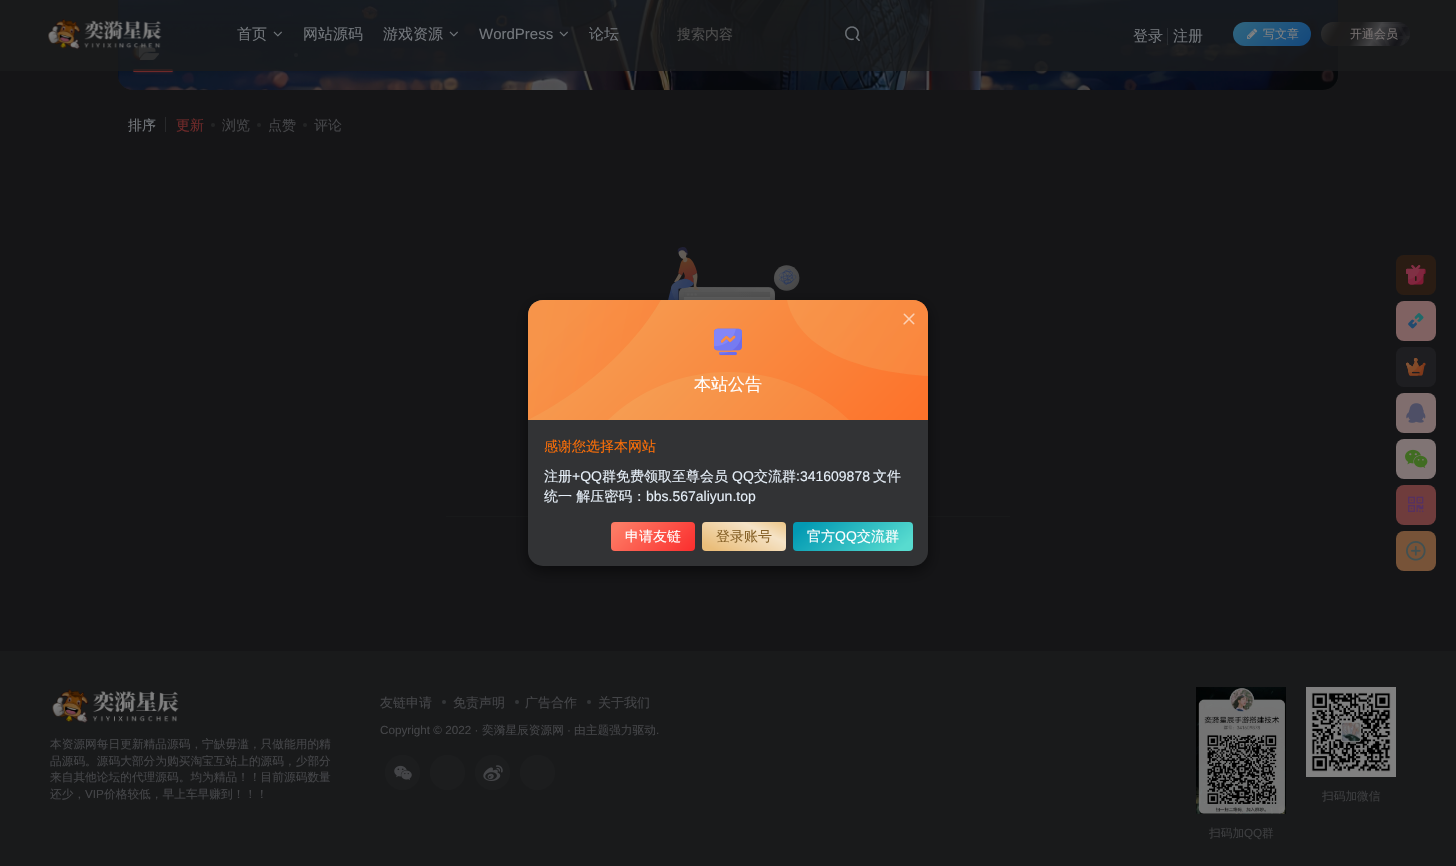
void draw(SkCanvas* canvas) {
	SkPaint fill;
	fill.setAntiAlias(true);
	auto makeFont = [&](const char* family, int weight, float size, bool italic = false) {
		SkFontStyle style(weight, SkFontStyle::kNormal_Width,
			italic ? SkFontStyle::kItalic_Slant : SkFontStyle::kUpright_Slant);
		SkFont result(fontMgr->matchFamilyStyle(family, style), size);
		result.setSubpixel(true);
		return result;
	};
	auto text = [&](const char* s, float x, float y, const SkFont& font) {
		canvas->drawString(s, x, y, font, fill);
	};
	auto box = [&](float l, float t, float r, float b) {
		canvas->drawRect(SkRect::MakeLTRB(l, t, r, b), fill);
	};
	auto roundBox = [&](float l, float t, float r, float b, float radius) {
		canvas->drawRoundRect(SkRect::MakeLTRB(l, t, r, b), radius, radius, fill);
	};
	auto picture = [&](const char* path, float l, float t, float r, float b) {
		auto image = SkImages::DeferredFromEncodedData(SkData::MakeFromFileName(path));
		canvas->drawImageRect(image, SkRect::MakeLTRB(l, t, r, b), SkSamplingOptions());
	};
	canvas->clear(0xFF151517);
	fill.setColor(0xFF191A1B);
	roundBox(118, -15, 1338, 90, 15);
	picture("image7.png", 118, 0, 1338, 90);
	{
		const SkColor colors[] = {0x660F1519, 0x000F1519};
		const float stops[] = {0.11f, 0.29f};
		const SkPoint ends[] = {{728, 90}, {728, -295}};
		fill.setShader(SkGradientShader::MakeLinear(ends, colors, stops, 2, SkTileMode::kClamp));
		fill.setAlpha(255);
	}
	roundBox(118, -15, 1338, 90, 15);
	picture("image8.png", 139, 44, 160, 60);
	fill.setShader(nullptr);
	fill.setColor(0xFF2D3541);
	canvas->drawCircle(296, 55, 2, fill);
	fill.setColor(0xFF6F2929);
	fill.setMaskFilter(SkMaskFilter::MakeBlur(kNormal_SkBlurStyle, 1.5f));
	canvas->drawRoundRect(SkRect::MakeLTRB(135, 71, 173, 72), 0.5f, 0.5f, fill);
	fill.setMaskFilter(nullptr);
	roundBox(133, 69, 173, 72, 1.5f);
	fill.setColor(0xCC191A1B);
	box(0, 0, 1456, 71);
	picture("image0.png", 47, 19, 162, 50);
	picture("image1.png", 273, 31, 282, 37);
	picture("image2.png", 449, 31, 458, 37);
	picture("image3.png", 559, 31, 568, 37);
	picture("image4.png", 845, 26, 860, 41);
	fill.setColor(0x3373777C);
	box(1167, 28, 1168, 45);
	{
		const SkColor colors[] = {0xFF2D627E, 0xFF13477C};
		const float stops[] = {0.1f, 1};
		const SkPoint ends[] = {{1247, 9}, {1298, 60}};
		fill.setShader(SkGradientShader::MakeLinear(ends, colors, stops, 2, SkTileMode::kClamp));
		fill.setAlpha(255);
	}
	roundBox(1233, 22, 1311, 46, 12);
	picture("image5.png", 1247, 28, 1258, 39);
	{
		const SkColor colors[] = {0xFF262729, 0xFF151519, 0xFF434345, 0xFF1D1D1E, 0xFF1D1C1C, 0xFF2F3031};
		const float stops[] = {0, 0.15f, 0.4f, 0.6f, 0.8f, 1};
		const SkPoint ends[] = {{1404, 56}, {1327, 12}};
		fill.setShader(SkGradientShader::MakeLinear(ends, colors, stops, 6, SkTileMode::kClamp));
		fill.setAlpha(255);
	}
	roundBox(1321, 22, 1410, 46, 12);
	fill.setShader(nullptr);
	fill.setColor(0xFF272423);
	box(1333, 25, 1334, 26);
	fill.setColor(0xFF28292B);
	box(165, 117, 166, 132);
	fill.setColor(0xFF232425);
	canvas->drawCircle(213, 125, 2, fill);
	canvas->drawCircle(259, 125, 2, fill);
	canvas->drawCircle(305, 125, 2, fill);
	picture("image9.png", 668, 247, 800, 300);
	fill.setColor(0xFF18191A);
	box(446, 516, 528, 517);
	box(928, 516, 1010, 517);
	fill.setColor(0x80000000);
	fill.setMaskFilter(SkMaskFilter::MakeBlur(kNormal_SkBlurStyle, 7.5f));
	canvas->drawRoundRect(SkRect::MakeLTRB(528, 305, 928, 571), 15, 15, fill);
	fill.setMaskFilter(nullptr);
	fill.setColor(0xFF323335);
	roundBox(528, 300, 928, 566, 15);
	{
		const SkColor colors[] = {0xFFF59F54, 0xFFFF6922};
		const float stops[] = {0.1f, 1};
		const SkPoint ends[] = {{618, 210}, {918, 510}};
		fill.setShader(SkGradientShader::MakeLinear(ends, colors, stops, 2, SkTileMode::kClamp));
		fill.setAlpha(255);
	}
	canvas->drawPath(SkPathBuilder().moveTo(543, 300).lineTo(913, 300).cubicTo(921.5f, 300, 928, 306.5f, 928, 315).lineTo(928, 420).lineTo(528, 420).lineTo(528, 315).cubicTo(528, 306.5f, 534.5f, 300, 543, 300).close().detach(), fill);
	{
		const SkColor colors[] = {0xFFF59F54, 0xFFFF6922};
		const float stops[] = {0.1f, 1};
		const SkPoint ends[] = {{575, 364}, {882, 670}};
		fill.setShader(SkGradientShader::MakeLinear(ends, colors, stops, 2, SkTileMode::kClamp));
		fill.setAlpha(255);
	}
	canvas->drawPath(SkPathBuilder().moveTo(728, 372).cubicTo(776, 372, 819, 391, 849, 420).lineTo(608, 420).cubicTo(638, 391, 681, 372, 728, 372).close().detach(), fill);
	{
		const SkColor colors[] = {0x66F59F54, 0x66FF6922};
		const float stops[] = {0.1f, 1};
		const SkPoint ends[] = {{292, 267}, {719, 351}};
		fill.setShader(SkGradientShader::MakeLinear(ends, colors, stops, 2, SkTileMode::kClamp));
		fill.setAlpha(255);
	}
	canvas->drawPath(SkPathBuilder().moveTo(543, 300).lineTo(661, 300).cubicTo(631, 351, 581, 393, 528, 420).lineTo(528, 315).cubicTo(528, 307, 535, 300, 543, 300).close().detach(), fill);
	{
		const SkColor colors[] = {0x99F59F54, 0x99FF6922};
		const float stops[] = {0.1f, 1};
		const SkPoint ends[] = {{799, 46}, {1419, 348}};
		fill.setShader(SkGradientShader::MakeLinear(ends, colors, stops, 2, SkTileMode::kClamp));
		fill.setAlpha(255);
	}
	canvas->drawPath(SkPathBuilder().moveTo(928, 376).cubicTo(878, 373, 800, 358, 787, 300).lineTo(913, 300).cubicTo(921, 300, 928, 307, 928, 315).close().detach(), fill);
	picture("image10.png", 903, 313, 915, 325);
	picture("image11.png", 714, 328, 742, 356);
	{
		const SkColor colors[] = {0xFFFD7A64, 0xFFFB2D2D};
		const float stops[] = {0.1f, 1};
		const SkPoint ends[] = {{625, 508}, {681, 565}};
		fill.setShader(SkGradientShader::MakeLinear(ends, colors, stops, 2, SkTileMode::kClamp));
		fill.setAlpha(255);
	}
	roundBox(611, 522, 695, 551, 4);
	{
		const SkColor colors[] = {0xFFEABE7B, 0xFFF5E3C7, 0xFFEDC788};
		const float stops[] = {0.1f, 0.7f, 1};
		const SkPoint ends[] = {{731, 564}, {757, 509}};
		fill.setShader(SkGradientShader::MakeLinear(ends, colors, stops, 3, SkTileMode::kClamp));
		fill.setAlpha(255);
	}
	roundBox(702, 522, 786, 551, 4);
	{
		const SkColor colors[] = {0xFF039AB3, 0xFF58DBCF};
		const float stops[] = {0.1f, 0.9f};
		const SkPoint ends[] = {{821, 498}, {885, 575}};
		fill.setShader(SkGradientShader::MakeLinear(ends, colors, stops, 2, SkTileMode::kClamp));
		fill.setAlpha(255);
	}
	roundBox(793, 522, 913, 551, 4);
	fill.setShader(nullptr);
	fill.setColor(0xFF2A1C13);
	roundBox(1396, 255, 1436, 295, 8);
	picture("image12.png", 1406, 265, 1426, 285);
	fill.setColor(0xFF806262);
	roundBox(1396, 301, 1436, 341, 8);
	picture("image13.png", 1408, 313, 1424, 329);
	fill.setColor(0xFF1E1E21);
	roundBox(1396, 347, 1436, 387, 8);
	picture("image14.png", 1406, 358, 1426, 376);
	fill.setColor(0xFF806E6E);
	roundBox(1396, 393, 1436, 433, 8);
	picture("image15.png", 1406, 403, 1426, 423);
	fill.setColor(0xFF807474);
	roundBox(1396, 439, 1436, 479, 8);
	picture("image16.png", 1405, 449, 1428, 468);
	fill.setColor(0xFF6F3C3C);
	roundBox(1396, 485, 1436, 525, 8);
	picture("image17.png", 1408, 496, 1424, 512);
	fill.setColor(0xFF775338);
	roundBox(1396, 531, 1436, 571, 8);
	picture("image18.png", 1406, 541, 1426, 561);
	fill.setColor(0xFF191A1B);
	box(0, 651, 1456, 866);
	fill.setColor(0xFF343638);
	canvas->drawCircle(444, 702, 2, fill);
	canvas->drawCircle(517, 702, 2, fill);
	canvas->drawCircle(589, 702, 2, fill);
	fill.setColor(0xFF1C1D1E);
	canvas->drawCircle(402.5f, 772.5f, 17.5f, fill);
	picture("image19.png", 394, 765, 412, 780);
	canvas->drawCircle(447.5f, 772.5f, 17.5f, fill);
	canvas->drawCircle(492.5f, 772.5f, 17.5f, fill);
	picture("image20.png", 483, 765, 503, 781);
	canvas->drawCircle(537.5f, 772.5f, 17.5f, fill);
	picture("image21.png", 52, 689, 179, 723);
	picture("image22.png", 1306, 687, 1396, 777);
	picture("image23.png", 1196, 687, 1286, 814);
	auto font1 = makeFont("WenQuanYi Zen Hei", 500, 15);
	fill.setColor(0xFF73777C);
	text("首页", 237, 39, font1);
	text("网站源码", 303, 39, font1);
	text("游戏资源", 383, 39, font1);
	auto font2 = makeFont("Liberation Sans", 400, 15);
	text("WordPress", 479, 39, font2);
	text("论坛", 589, 39, font1);
	auto font3 = makeFont("WenQuanYi Zen Hei", 500, 14);
	fill.setColor(0xFF4D4D4D);
	text("搜索内容", 677, 39, font3);
	fill.setColor(0xFF73777C);
	text("登录", 1133, 41, font1);
	text("注册", 1173, 41, font1);
	auto font4 = makeFont("WenQuanYi Zen Hei", 500, 12);
	fill.setColor(0xFF808080);
	text("写文章", 1263, 38, font4);
	fill.setColor(0xFF767070);
	text("开通会员", 1350, 38, font4);
	picture("image6.png", 1371, 24, 1410, 46);
	fill.setColor(0xFF73777C);
	text("排序", 128, 130, font3);
	fill.setColor(0xFF6F2929);
	text("更新", 176, 130, font3);
	fill.setColor(0xFF444548);
	text("浏览", 222, 130, font3);
	text("点赞", 268, 130, font3);
	text("评论", 314, 130, font3);
	auto font5 = makeFont("WenQuanYi Zen Hei", 500, 17);
	fill.setColor(0xFFFFFFFF);
	text("本站公告", 694, 390, font5);
	fill.setColor(0xFFFF6F06);
	text("感谢您选择本网站", 544, 451, font3);
	fill.setColor(0xFFE5EEF7);
	text("注册", 544, 481, font3);
	auto font6 = makeFont("Liberation Sans", 400, 14);
	text("+QQ", 572, 481, font6);
	text("群免费领取至尊会员", 602, 481, font3);
	text("QQ", 732, 481, font6);
	text("交流群", 754, 481, font3);
	text(":341609878", 796, 481, font6);
	text("文件", 873, 481, font3);
	text("统一 解压密码：", 544, 501, font3);
	text("bbs.567aliyun.top", 646, 501, font6);
	fill.setColor(0xFFFFFFFF);
	text("申请友链", 625, 541, font3);
	fill.setColor(0xFF866127);
	text("登录账号", 716, 541, font3);
	fill.setColor(0xFFFFFFFF);
	text("官方", 807, 541, font3);
	text("QQ", 835, 541, font6);
	text("交流群", 857, 541, font3);
	auto font7 = makeFont("WenQuanYi Zen Hei", 500, 13);
	fill.setColor(0xFF444548);
	text("友链申请", 380, 707, font7);
	text("免责声明", 453, 707, font7);
	text("广告合作", 525, 707, font7);
	text("关于我们", 598, 707, font7);
	auto font8 = makeFont("Liberation Sans", 400, 11.7f);
	text("Copyright © 2022 ·", 380, 734, font8);
	auto font9 = makeFont("WenQuanYi Zen Hei", 500, 11.7f);
	text("奕漪星辰资源网", 482, 734, font9);
	text("·", 567, 734, font8);
	text("由主题强力驱动", 574, 734, font9);
	text(".", 656, 734, font8);
	text("本资源网每日更新精品源码，宁缺毋滥，只做能用的精", 50, 748, font9);
	text("品源码。源码大部分为购买淘宝互站上的源码，少部分", 50, 765, font9);
	text("来自其他论坛的代理源码。均为精品！！目前源码数量", 50, 781, font9);
	text("还少，", 50, 798, font9);
	text("VIP", 85, 798, font8);
	text("价格较低，早上车早赚到！！！", 104, 798, font9);
	fill.setColor(0xFF3C3D3F);
	text("扫码加微信", 1322, 800, font9);
	text("扫码加", 1209, 837, font9);
	text("QQ", 1244, 837, font8);
	text("群", 1262, 837, font9);
}
